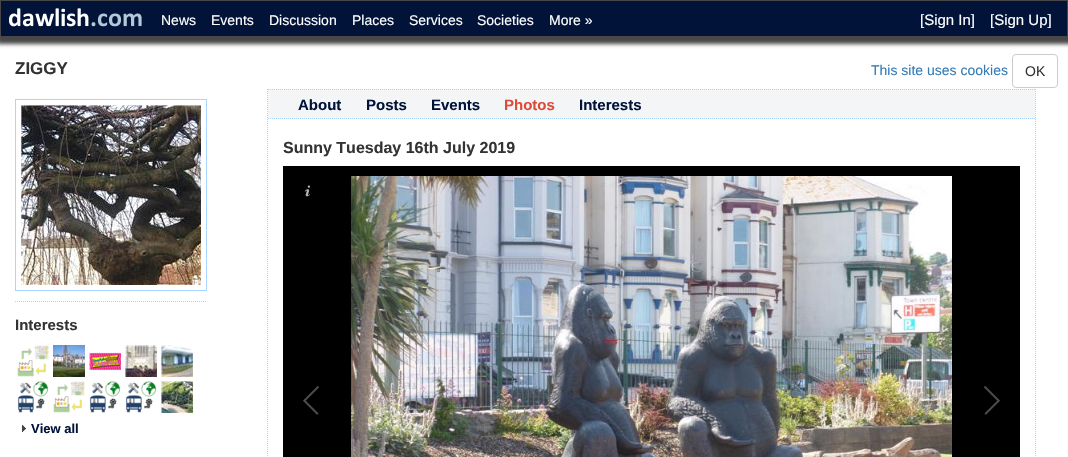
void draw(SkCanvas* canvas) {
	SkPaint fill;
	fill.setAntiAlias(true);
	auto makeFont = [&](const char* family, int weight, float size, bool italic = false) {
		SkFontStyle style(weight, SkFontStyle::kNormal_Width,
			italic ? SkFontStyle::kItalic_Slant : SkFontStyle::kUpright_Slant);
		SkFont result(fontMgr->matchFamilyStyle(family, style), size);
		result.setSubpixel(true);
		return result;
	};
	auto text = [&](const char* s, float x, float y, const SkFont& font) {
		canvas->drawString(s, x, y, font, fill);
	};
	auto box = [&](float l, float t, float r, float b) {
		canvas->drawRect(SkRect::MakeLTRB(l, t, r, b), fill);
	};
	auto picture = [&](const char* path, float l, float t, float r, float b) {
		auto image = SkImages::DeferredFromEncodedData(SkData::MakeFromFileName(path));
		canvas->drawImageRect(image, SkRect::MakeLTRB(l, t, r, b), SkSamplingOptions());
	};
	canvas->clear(0xFFFFFFFF);
	fill.setColor(0xFF464746);
	fill.setMaskFilter(SkMaskFilter::MakeBlur(kNormal_SkBlurStyle, 2));
	canvas->drawRect(SkRect::MakeLTRB(-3, -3, 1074, 44), fill);
	fill.setMaskFilter(nullptr);
	fill.setColor(0xFF011339);
	canvas->drawRect(SkRect::MakeLTRB(0.5f, 0.5f, 1067.5f, 36.5f), fill);
	fill.setStyle(SkPaint::kStroke_Style);
	fill.setStrokeWidth(1);
	fill.setColor(0xFF464746);
	canvas->drawRect(SkRect::MakeLTRB(0.5f, 0.5f, 1067.5f, 36.5f), fill);
	picture("image0.png", 8, 8, 142, 27);
	fill.setColor(0xFFA9D6FF);
	fill.setPathEffect(SkDashPathEffect::Make({{1, 1}}, 0));
	canvas->drawPath(SkPathBuilder().moveTo(1035.5f, 89).lineTo(1035.5f, 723).detach(), fill);
	fill.setPathEffect(nullptr);
	fill.setPathEffect(SkDashPathEffect::Make({{1, 1}}, 0));
	canvas->drawPath(SkPathBuilder().moveTo(267.5f, 89).lineTo(267.5f, 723).detach(), fill);
	fill.setPathEffect(nullptr);
	fill.setStyle(SkPaint::kFill_Style);
	fill.setColor(0xFFF3F5F6);
	box(268, 89, 1035, 119);
	fill.setStyle(SkPaint::kStroke_Style);
	fill.setColor(0xFFA9D6FF);
	fill.setPathEffect(SkDashPathEffect::Make({{1, 1}}, 0));
	canvas->drawPath(SkPathBuilder().moveTo(268, 89.5f).lineTo(1035, 89.5f).detach(), fill);
	fill.setPathEffect(nullptr);
	fill.setPathEffect(SkDashPathEffect::Make({{1, 1}}, 0));
	canvas->drawPath(SkPathBuilder().moveTo(268, 118.5f).lineTo(1035, 118.5f).detach(), fill);
	fill.setPathEffect(nullptr);
	fill.setStyle(SkPaint::kFill_Style);
	fill.setColor(0xFF000000);
	box(283, 166, 1020, 457);
	picture("image1.png", 351, 176, 952, 457);
	picture("image2.png", 303, 386, 319, 415);
	picture("image3.png", 984, 386, 1000, 415);
	picture("image4.png", 304, 185, 310, 197);
	fill.setStyle(SkPaint::kStroke_Style);
	fill.setColor(0xFFA9D6FF);
	canvas->drawRect(SkRect::MakeLTRB(15.5f, 99.5f, 206.5f, 290.5f), fill);
	picture("image5.png", 21, 105, 201, 285);
	fill.setPathEffect(SkDashPathEffect::Make({{1, 1}}, 0));
	canvas->drawPath(SkPathBuilder().moveTo(15, 301.5f).lineTo(207, 301.5f).detach(), fill);
	fill.setPathEffect(nullptr);
	picture("image6.png", 17, 345, 49, 377);
	picture("image7.png", 53, 345, 85, 377);
	picture("image8.png", 89, 352, 121, 371);
	picture("image9.png", 125, 345, 157, 377);
	picture("image10.png", 161, 345, 193, 377);
	picture("image11.png", 17, 381, 49, 413);
	picture("image6.png", 53, 381, 85, 413);
	picture("image11.png", 89, 381, 121, 413);
	picture("image11.png", 125, 381, 157, 413);
	picture("image12.png", 161, 381, 193, 413);
	picture("image13.png", 22, 425, 26, 432);
	fill.setColor(0xFFCCCCCC);
	canvas->drawRoundRect(SkRect::MakeLTRB(1012.5f, 54.5f, 1057.5f, 87.5f), 3.5f, 3.5f, fill);
	auto font1 = makeFont("Liberation Sans", 400, 14);
	fill.setStyle(SkPaint::kFill_Style);
	fill.setColor(0xFFFFFFFF);
	text("News", 161, 25, font1);
	text("Events", 211, 25, font1);
	text("Discussion", 269, 25, font1);
	text("Places", 352, 25, font1);
	text("Services", 409, 25, font1);
	text("Societies", 477, 25, font1);
	text("More »", 549, 25, font1);
	auto font2 = makeFont("Liberation Sans", 400, 15);
	text("[Sign In]", 920, 25, font2);
	text("[Sign Up]", 990, 25, font2);
	auto font3 = makeFont("Liberation Sans", 700, 17);
	fill.setColor(0xFF333333);
	text("ZIGGY", 15, 74, font3);
	auto font4 = makeFont("Liberation Sans", 700, 15);
	fill.setColor(0xFF011339);
	text("About", 298, 110, font4);
	text("Posts", 366, 110, font4);
	text("Events", 431, 110, font4);
	fill.setColor(0xFFDD4B39);
	text("Photos", 504, 110, font4);
	fill.setColor(0xFF011339);
	text("Interests", 579, 110, font4);
	auto font5 = makeFont("Liberation Sans", 700, 16);
	fill.setColor(0xFF333333);
	text("Sunny Tuesday 16th July 2019", 283, 153, font5);
	text("Interests", 15, 330, font4);
	auto font6 = makeFont("Liberation Sans", 700, 13);
	fill.setColor(0xFF011339);
	text("View all", 31, 433, font6);
	fill.setColor(0xFF337AB7);
	text("This site uses cookies", 871, 75, font1);
	fill.setColor(0xFF333333);
	text("OK", 1025, 76, font1);
}
